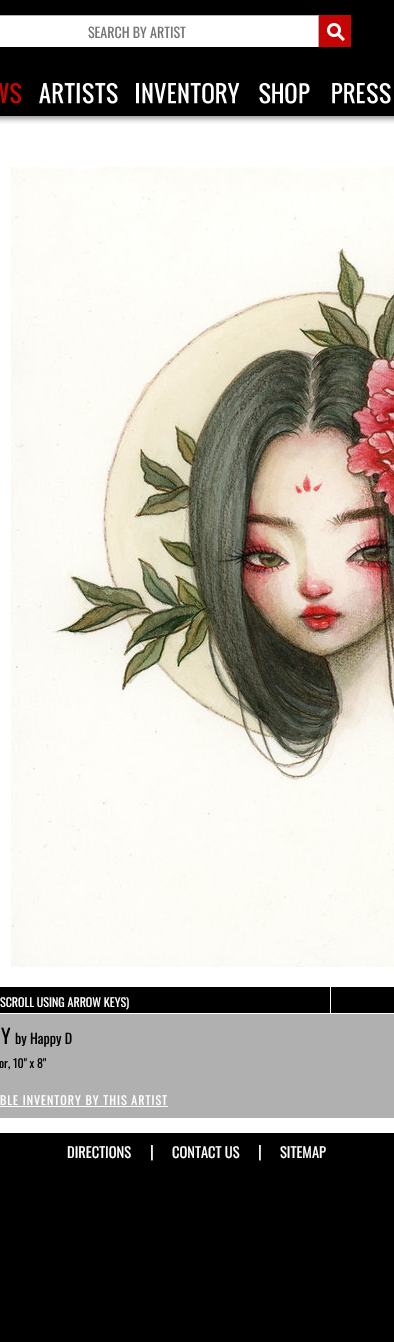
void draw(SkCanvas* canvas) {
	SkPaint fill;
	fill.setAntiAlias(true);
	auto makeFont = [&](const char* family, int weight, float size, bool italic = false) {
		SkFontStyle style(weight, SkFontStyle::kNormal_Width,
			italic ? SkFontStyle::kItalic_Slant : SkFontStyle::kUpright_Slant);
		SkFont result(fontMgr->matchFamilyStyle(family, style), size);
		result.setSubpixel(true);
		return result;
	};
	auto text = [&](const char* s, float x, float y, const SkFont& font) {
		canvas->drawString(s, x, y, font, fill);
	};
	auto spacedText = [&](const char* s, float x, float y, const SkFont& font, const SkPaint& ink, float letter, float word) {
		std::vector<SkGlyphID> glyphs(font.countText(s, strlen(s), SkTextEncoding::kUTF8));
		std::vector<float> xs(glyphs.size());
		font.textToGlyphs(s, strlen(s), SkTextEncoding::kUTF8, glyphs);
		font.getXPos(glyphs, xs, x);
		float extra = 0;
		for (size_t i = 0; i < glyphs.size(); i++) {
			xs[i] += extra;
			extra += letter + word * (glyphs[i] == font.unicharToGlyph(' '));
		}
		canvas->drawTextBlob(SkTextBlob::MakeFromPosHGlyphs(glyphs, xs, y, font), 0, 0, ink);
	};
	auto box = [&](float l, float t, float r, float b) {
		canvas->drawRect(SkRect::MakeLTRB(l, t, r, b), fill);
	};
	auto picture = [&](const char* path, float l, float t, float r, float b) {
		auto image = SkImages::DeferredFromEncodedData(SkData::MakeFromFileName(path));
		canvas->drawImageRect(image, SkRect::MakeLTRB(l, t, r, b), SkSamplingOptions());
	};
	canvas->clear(0xFFFFFFFF);
	picture("image0.png", 0, 0, 394, 124);
	fill.setColor(0xFFFFFFFF);
	box(0, 16, 318, 47);
	fill.setColor(0xFFB2B2B2);
	box(0, 15, 319, 16);
	box(318, 15, 319, 47);
	picture("image1.png", 319, 15, 351, 47);
	picture("image2.png", 0, 83, 21, 104);
	picture("image3.png", 39, 83, 118, 104);
	picture("image4.png", 136, 83, 239, 104);
	picture("image5.png", 259, 83, 310, 104);
	picture("image6.png", 332, 83, 391, 104);
	picture("image7.png", 11, 167, 394, 967);
	fill.setColor(0xFF000000);
	box(0, 987, 330, 1013);
	box(331, 987, 394, 1013);
	fill.setColor(0xFFB0B0B0);
	box(0, 1014, 394, 1118);
	fill.setColor(0xFFFFFFFF);
	box(0, 1106, 168, 1107);
	fill.setColor(0xFF000000);
	box(0, 1133, 394, 1342);
	auto font1 = makeFont("Oswald", 400, 14);
	fill.setColor(0xFF757575);
	text("SEARCH BY ARTIST", 88, 38, font1);
	auto font2 = makeFont("Oswald", 400, 12);
	fill.setColor(0xFFFFFFFF);
	text("SCROLL USING ARROW KEYS)", 0, 1007, font2);
	auto font3 = makeFont("Oswald", 400, 20);
	fill.setColor(0xFF000000);
	text("Y", 1, 1044, font3);
	text("by Happy D", 15, 1044, font1);
	text("or, 10\" x 8\"", -1, 1068, font2);
	fill.setColor(0xFFFFFFFF);
	spacedText("BLE INVENTORY BY THIS ARTIST", 0, 1105, font2, fill, 1, 0);
	auto font4 = makeFont("Oswald", 400, 14.5f);
	text("DIRECTIONS", 67, 1158, font4);
	auto font5 = makeFont("Oswald", 400, 16);
	text("|", 150, 1158, font5);
	text("CONTACT US", 172, 1158, font4);
	text("|", 258, 1158, font5);
	text("SITEMAP", 280, 1158, font4);
}
